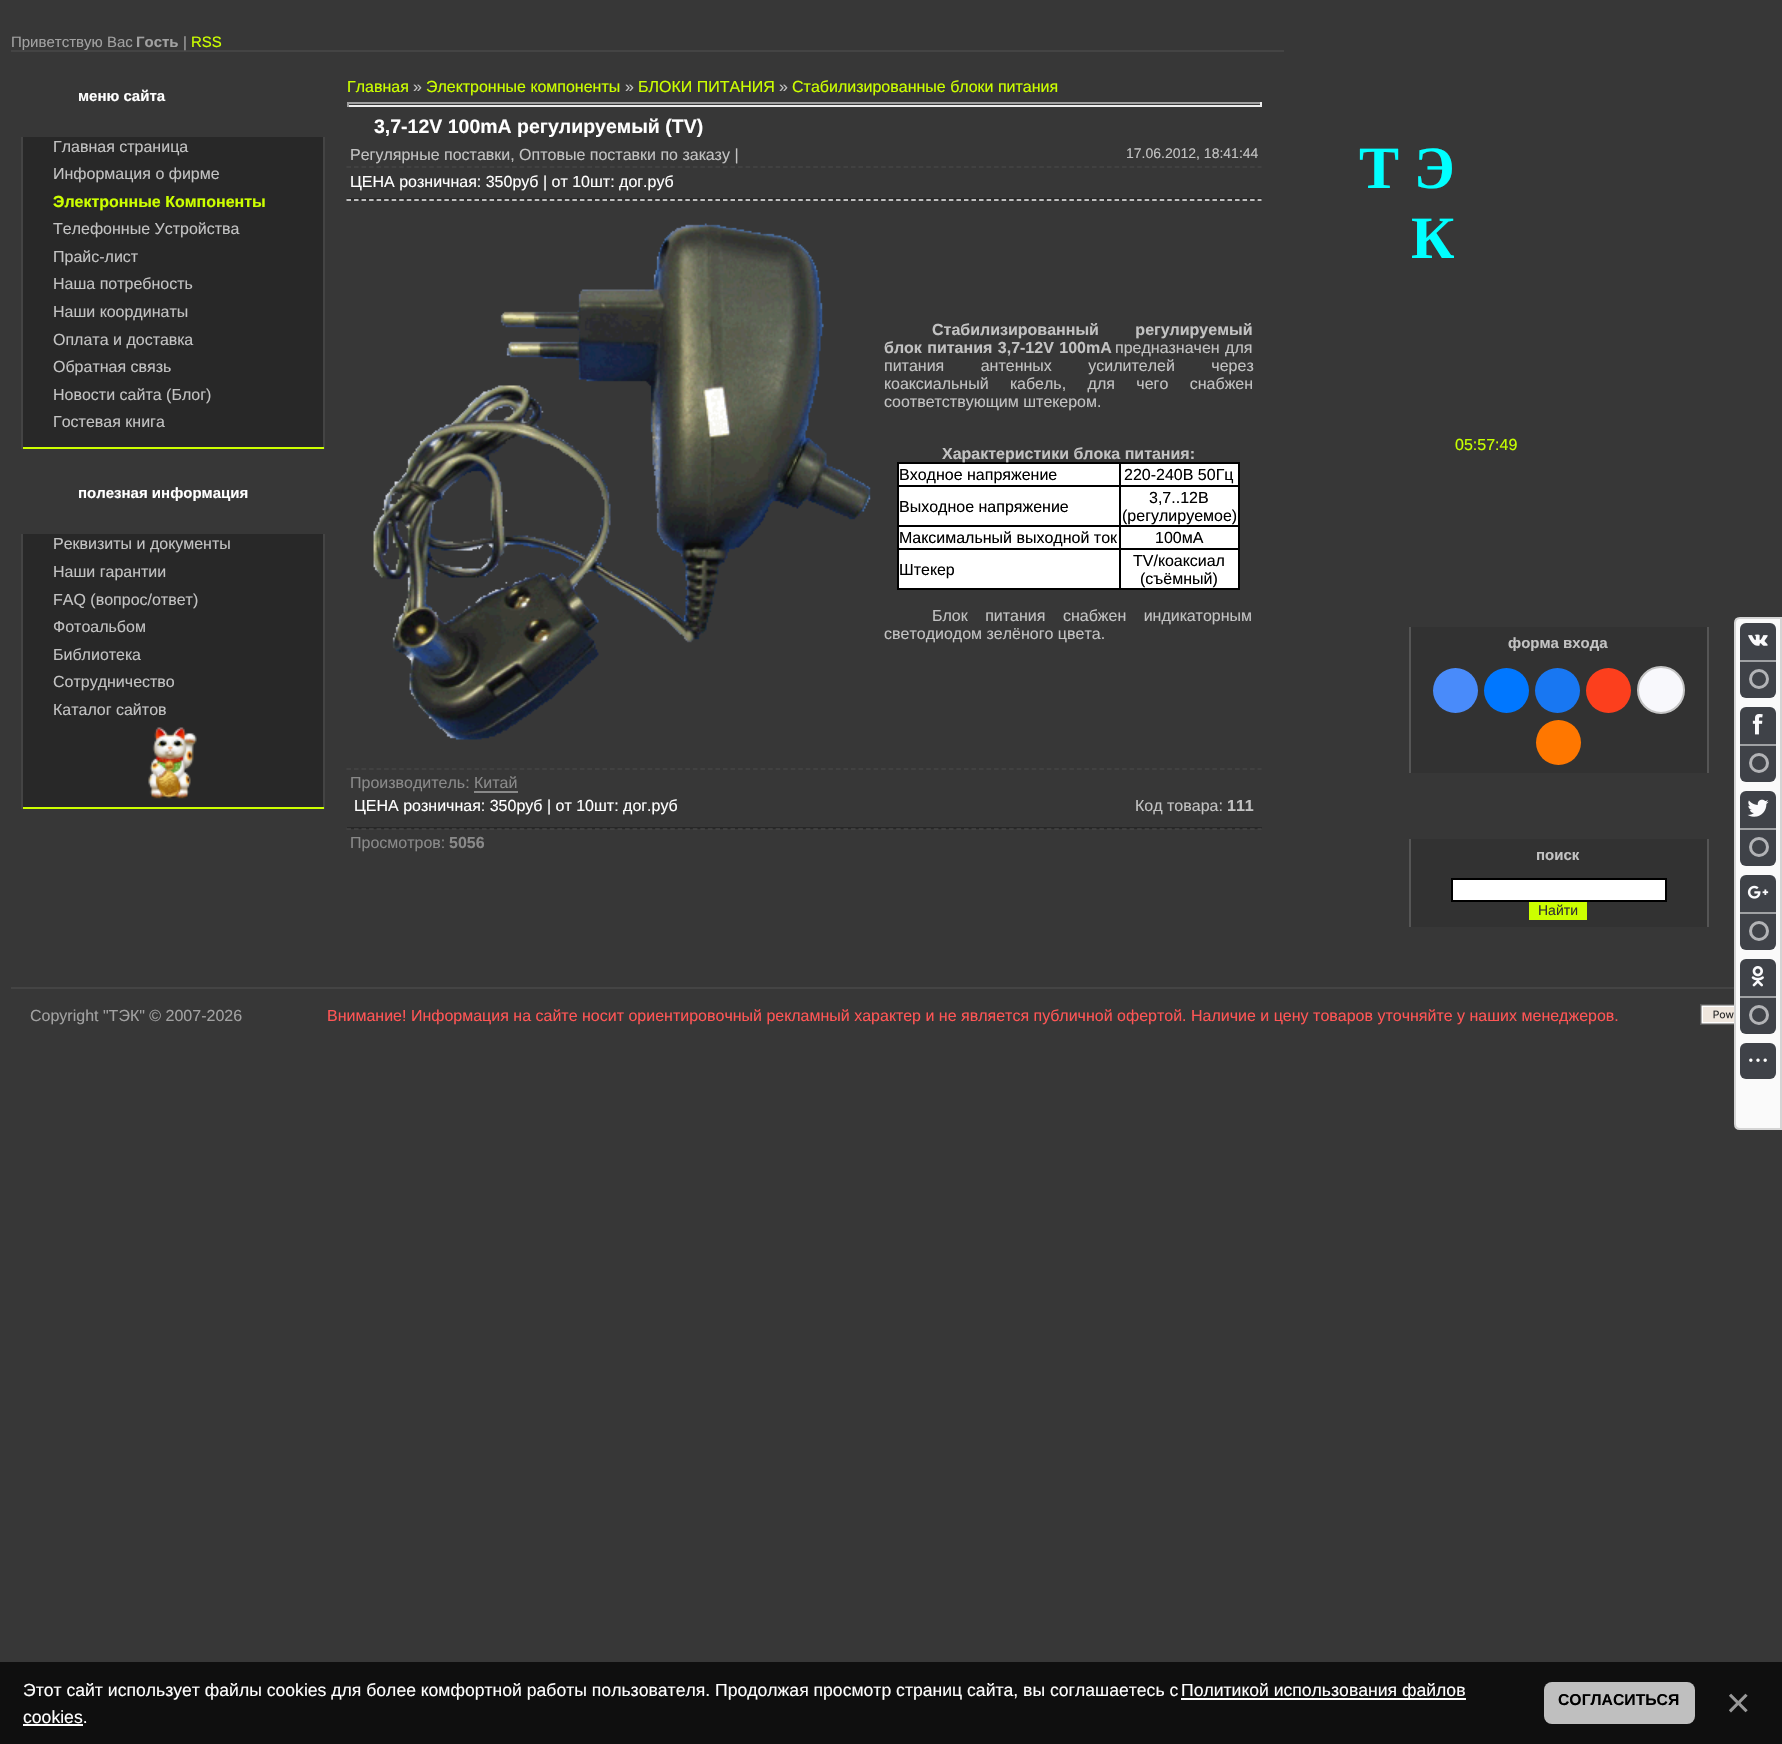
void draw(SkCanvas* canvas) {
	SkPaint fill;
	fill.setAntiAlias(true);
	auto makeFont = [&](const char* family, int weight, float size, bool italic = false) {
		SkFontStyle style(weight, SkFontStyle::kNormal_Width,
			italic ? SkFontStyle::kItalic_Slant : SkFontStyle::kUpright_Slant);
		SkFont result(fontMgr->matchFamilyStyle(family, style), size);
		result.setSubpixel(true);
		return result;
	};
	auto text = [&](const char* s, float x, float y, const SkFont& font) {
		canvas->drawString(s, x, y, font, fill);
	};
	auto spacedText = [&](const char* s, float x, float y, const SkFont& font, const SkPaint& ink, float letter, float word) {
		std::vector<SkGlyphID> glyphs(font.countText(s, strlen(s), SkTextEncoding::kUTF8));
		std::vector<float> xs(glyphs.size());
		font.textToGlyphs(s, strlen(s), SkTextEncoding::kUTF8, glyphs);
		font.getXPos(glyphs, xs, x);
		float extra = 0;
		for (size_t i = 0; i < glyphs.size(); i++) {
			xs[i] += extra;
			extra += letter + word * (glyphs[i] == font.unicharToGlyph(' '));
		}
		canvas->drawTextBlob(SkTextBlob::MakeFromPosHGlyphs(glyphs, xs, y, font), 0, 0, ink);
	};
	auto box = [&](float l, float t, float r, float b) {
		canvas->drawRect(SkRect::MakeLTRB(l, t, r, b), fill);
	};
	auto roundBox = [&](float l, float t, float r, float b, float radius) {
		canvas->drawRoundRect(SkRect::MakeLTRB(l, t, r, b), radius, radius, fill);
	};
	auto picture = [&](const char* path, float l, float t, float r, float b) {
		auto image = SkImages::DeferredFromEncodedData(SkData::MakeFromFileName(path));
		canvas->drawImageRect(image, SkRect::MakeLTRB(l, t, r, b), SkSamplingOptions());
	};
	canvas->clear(0xFF373737);
	fill.setColor(0xFF444444);
	box(11, 50, 1284, 52);
	fill.setColor(0xFF282828);
	box(23, 137, 323, 447);
	fill.setColor(0xFF444444);
	box(323, 137, 325, 449);
	fill.setColor(0xFFCCFF00);
	box(21, 447, 324, 449);
	fill.setColor(0xFF444444);
	box(21, 137, 23, 449);
	fill.setColor(0xFF282828);
	box(23, 534, 323, 807);
	fill.setColor(0xFF444444);
	box(323, 534, 325, 809);
	fill.setColor(0xFFCCFF00);
	box(21, 807, 324, 809);
	fill.setColor(0xFF444444);
	box(21, 534, 23, 809);
	picture("image0.png", 148, 727, 197, 799);
	fill.setColor(0xFF9F9F9F);
	box(347, 102, 1262, 104);
	fill.setColor(0xFFEEEEEE);
	box(1260, 102, 1262, 107);
	box(347, 105, 1262, 107);
	fill.setColor(0xFF9F9F9F);
	box(347, 102, 349, 107);
	fill.setStyle(SkPaint::kStroke_Style);
	fill.setStrokeWidth(1.5f);
	fill.setColor(0xFF444444);
	fill.setPathEffect(SkDashPathEffect::Make({{4.5f, 3.03f}}, 0));
	canvas->drawPath(SkPathBuilder().moveTo(346.5f, 167).lineTo(1261.5f, 167).detach(), fill);
	fill.setPathEffect(nullptr);
	fill.setStyle(SkPaint::kFill_Style);
	fill.setColor(0xFF282828);
	box(347, 198, 1262, 200);
	fill.setStyle(SkPaint::kStroke_Style);
	fill.setColor(0xFFEFEFEF);
	fill.setPathEffect(SkDashPathEffect::Make({{4.5f, 3.03f}}, 0));
	canvas->drawPath(SkPathBuilder().moveTo(346.5f, 200).lineTo(1261.5f, 200).detach(), fill);
	fill.setPathEffect(nullptr);
	picture("image1.png", 373, 223, 871, 740);
	fill.setStyle(SkPaint::kFill_Style);
	fill.setColor(0xFFFFFFFF);
	box(899, 464, 1238, 588);
	fill.setColor(0xFF000000);
	box(1119, 462, 1239, 464);
	box(1119, 485, 1239, 487);
	box(1119, 525, 1239, 527);
	box(1119, 548, 1239, 550);
	box(1238, 548, 1240, 590);
	box(1119, 588, 1239, 590);
	box(1119, 548, 1121, 590);
	box(897, 548, 1121, 550);
	box(1119, 525, 1121, 549);
	box(897, 525, 1121, 527);
	box(1119, 485, 1121, 527);
	box(897, 485, 1121, 487);
	box(1119, 462, 1121, 486);
	box(897, 462, 1121, 464);
	box(897, 588, 1121, 590);
	box(897, 548, 899, 590);
	box(897, 525, 899, 549);
	box(897, 485, 899, 527);
	box(897, 462, 899, 486);
	box(1238, 525, 1240, 549);
	box(1238, 485, 1240, 527);
	box(1238, 462, 1240, 486);
	fill.setStyle(SkPaint::kStroke_Style);
	fill.setColor(0xFF444444);
	fill.setPathEffect(SkDashPathEffect::Make({{4.5f, 3.03f}}, 0));
	canvas->drawPath(SkPathBuilder().moveTo(346.5f, 769).lineTo(1261.5f, 769).detach(), fill);
	fill.setPathEffect(nullptr);
	fill.setStyle(SkPaint::kFill_Style);
	fill.setColor(0xFF282828);
	box(347, 827, 1262, 829);
	fill.setColor(0xFF898989);
	box(474, 791, 518, 793);
	fill.setStyle(SkPaint::kStroke_Style);
	fill.setColor(0xFF444444);
	fill.setPathEffect(SkDashPathEffect::Make({{4.5f, 3.03f}}, 0));
	canvas->drawPath(SkPathBuilder().moveTo(346.5f, 829).lineTo(1261.5f, 829).detach(), fill);
	fill.setPathEffect(nullptr);
	fill.setStyle(SkPaint::kFill_Style);
	fill.setColor(0xFF323232);
	box(1411, 627, 1707, 773);
	fill.setColor(0xFF555555);
	box(1707, 627, 1709, 773);
	box(1409, 627, 1411, 773);
	fill.setColor(0xFF498BFA);
	canvas->drawCircle(1455.5f, 690.5f, 22.5f, fill);
	fill.setColor(0xFF0077FF);
	canvas->drawCircle(1506.5f, 690.5f, 22.5f, fill);
	fill.setColor(0xFF1877F2);
	canvas->drawCircle(1557.5f, 690.5f, 22.5f, fill);
	fill.setColor(0xFFFC3F1D);
	canvas->drawCircle(1608.5f, 690.5f, 22.5f, fill);
	fill.setColor(0xFFF8F8FC);
	canvas->drawCircle(1661, 690, 23, fill);
	fill.setStyle(SkPaint::kStroke_Style);
	fill.setStrokeWidth(2);
	fill.setColor(0xFFC4C4C4);
	canvas->drawCircle(1661, 690, 23, fill);
	fill.setStyle(SkPaint::kFill_Style);
	fill.setColor(0xFFFF7700);
	canvas->drawCircle(1558.5f, 742.5f, 22.5f, fill);
	fill.setColor(0xFF323232);
	box(1411, 839, 1707, 927);
	fill.setColor(0xFF555555);
	box(1707, 839, 1709, 927);
	box(1409, 839, 1411, 927);
	fill.setColor(0xFFFFFFFF);
	canvas->drawRect(SkRect::MakeLTRB(1452, 879, 1666, 901), fill);
	fill.setStyle(SkPaint::kStroke_Style);
	fill.setColor(0xFF000000);
	canvas->drawRect(SkRect::MakeLTRB(1452, 879, 1666, 901), fill);
	fill.setStyle(SkPaint::kFill_Style);
	fill.setColor(0xFFCCFF00);
	box(1529, 902, 1587, 920);
	fill.setColor(0xFF444444);
	box(11, 987, 1734, 989);
	picture("image2.png", 1700, 1004, 1734, 1025);
	fill.setColor(0xFFFAFAFA);
	canvas->drawPath(SkPathBuilder().moveTo(1740, 618).lineTo(1781, 618).lineTo(1781, 1129).lineTo(1740, 1129).cubicTo(1737, 1129, 1735, 1127, 1735, 1124).lineTo(1735, 623).cubicTo(1735, 620, 1737, 618, 1740, 618).close().detach(), fill);
	fill.setStyle(SkPaint::kStroke_Style);
	fill.setColor(0xFFD4D4D4);
	canvas->drawPath(SkPathBuilder().moveTo(1740, 618).lineTo(1781, 618).lineTo(1781, 1129).lineTo(1740, 1129).cubicTo(1737, 1129, 1735, 1127, 1735, 1124).lineTo(1735, 623).cubicTo(1735, 620, 1737, 618, 1740, 618).close().detach(), fill);
	fill.setStyle(SkPaint::kFill_Style);
	fill.setColor(0xFF3F4248);
	roundBox(1740, 623, 1776, 698, 6);
	picture("image3.png", 1748, 634, 1768, 646);
	fill.setColor(0xFF9FA1A4);
	box(1740, 660, 1776, 662);
	fill.setStyle(SkPaint::kStroke_Style);
	fill.setStrokeWidth(3);
	fill.setColor(0xFFB2B3B6);
	canvas->drawCircle(1759, 679, 8.5f, fill);
	fill.setStyle(SkPaint::kFill_Style);
	fill.setColor(0xFF3F4248);
	roundBox(1740, 707, 1776, 782, 6);
	picture("image4.png", 1752, 714, 1763, 735);
	fill.setColor(0xFF9FA1A4);
	box(1740, 744, 1776, 746);
	fill.setStyle(SkPaint::kStroke_Style);
	fill.setColor(0xFFB2B3B6);
	canvas->drawCircle(1759, 763, 8.5f, fill);
	fill.setStyle(SkPaint::kFill_Style);
	fill.setColor(0xFF3F4248);
	roundBox(1740, 791, 1776, 866, 6);
	picture("image5.png", 1747, 799, 1769, 817);
	fill.setColor(0xFF9FA1A4);
	box(1740, 828, 1776, 830);
	fill.setStyle(SkPaint::kStroke_Style);
	fill.setColor(0xFFB2B3B6);
	canvas->drawCircle(1759, 847, 8.5f, fill);
	fill.setStyle(SkPaint::kFill_Style);
	fill.setColor(0xFF3F4248);
	roundBox(1740, 875, 1776, 950, 6);
	picture("image6.png", 1747, 885, 1769, 899);
	fill.setColor(0xFF9FA1A4);
	box(1740, 912, 1776, 914);
	fill.setStyle(SkPaint::kStroke_Style);
	fill.setColor(0xFFB2B3B6);
	canvas->drawCircle(1759, 931, 8.5f, fill);
	fill.setStyle(SkPaint::kFill_Style);
	fill.setColor(0xFF3F4248);
	roundBox(1740, 959, 1776, 1034, 6);
	picture("image7.png", 1751, 966, 1764, 987);
	fill.setColor(0xFF9FA1A4);
	box(1740, 996, 1776, 998);
	fill.setStyle(SkPaint::kStroke_Style);
	fill.setColor(0xFFB2B3B6);
	canvas->drawCircle(1759, 1015, 8.5f, fill);
	fill.setStyle(SkPaint::kFill_Style);
	fill.setColor(0xFF3F4248);
	roundBox(1740, 1043, 1776, 1079, 6);
	picture("image8.png", 1749, 1058, 1767, 1062);
	fill.setColor(0xFF0F0F0F);
	box(0, 1662, 1782, 1744);
	fill.setColor(0xFFFFFFFF);
	box(1181, 1698, 1466, 1700);
	box(23, 1724, 83, 1726);
	fill.setColor(0xFFBFBFBF);
	roundBox(1544, 1682, 1695, 1724, 8);
	auto font1 = makeFont("Liberation Sans", 400, 15);
	fill.setColor(0xFFA1A1A1);
	text("Приветствую Вас", 11, 47, font1);
	auto font2 = makeFont("Liberation Sans", 700, 15);
	text("Гость", 136, 47, font2);
	text("|", 183, 47, font1);
	fill.setColor(0xFFCCFF00);
	text("RSS", 191, 47, font1);
	fill.setColor(0xFFFFFFFF);
	text("меню сайта", 78, 101, font2);
	auto font3 = makeFont("Liberation Sans", 400, 16);
	fill.setColor(0xFFC2C2C2);
	text("Главная страница", 53, 152, font3);
	text("Информация о фирме", 53, 179, font3);
	auto font4 = makeFont("Liberation Sans", 700, 16);
	fill.setColor(0xFFCCFF00);
	text("Электронные Компоненты", 53, 207, font4);
	fill.setColor(0xFFC2C2C2);
	text("Телефонные Устройства", 53, 234, font3);
	text("Прайс-лист", 53, 262, font3);
	text("Наша потребность", 53, 289, font3);
	text("Наши координаты", 53, 317, font3);
	text("Оплата и доставка", 53, 345, font3);
	text("Обратная связь", 53, 372, font3);
	text("Новости сайта (Блог)", 53, 400, font3);
	text("Гостевая книга", 53, 427, font3);
	fill.setColor(0xFFFFFFFF);
	text("полезная информация", 78, 498, font2);
	fill.setColor(0xFFC2C2C2);
	text("Реквизиты и документы", 53, 549, font3);
	text("Наши гарантии", 53, 577, font3);
	text("FAQ (вопрос/ответ)", 53, 605, font3);
	text("Фотоальбом", 53, 632, font3);
	text("Библиотека", 53, 660, font3);
	text("Сотрудничество", 53, 687, font3);
	text("Каталог сайтов", 53, 715, font3);
	fill.setColor(0xFFCCFF00);
	text("Главная", 347, 92, font3);
	fill.setColor(0xFFC2C2C2);
	text("»", 413, 92, font3);
	fill.setColor(0xFFCCFF00);
	text("Электронные компоненты", 426, 92, font3);
	fill.setColor(0xFFC2C2C2);
	text("»", 625, 92, font3);
	fill.setColor(0xFFCCFF00);
	text("БЛОКИ ПИТАНИЯ", 638, 92, font3);
	fill.setColor(0xFFC2C2C2);
	text("»", 779, 92, font3);
	fill.setColor(0xFFCCFF00);
	text("Стабилизированные блоки питания", 792, 92, font3);
	auto font5 = makeFont("Liberation Sans", 700, 19.5f);
	fill.setColor(0xFFFFFFFF);
	text("3,7-12V 100mA регулируемый (TV)", 374, 133, font5);
	fill.setColor(0xFFC2C2C2);
	text("Регулярные поставки, Оптовые поставки по заказу |", 350, 160, font3);
	auto font6 = makeFont("Liberation Sans", 400, 14);
	text("17.06.2012, 18:41:44", 1126, 158, font6);
	fill.setColor(0xFFFFFFFF);
	text("ЦЕНА розничная: 350руб | от 10шт: дог.руб", 350, 187, font3);
	fill.setColor(0xFFC2C2C2);
	spacedText("Стабилизированный регулируемый", 932, 335, font4, fill, 0, 32);
	spacedText("блок питания 3,7-12V 100mA", 884, 353, font4, fill, 0, 1);
	spacedText("предназначен для", 1115, 353, font3, fill, 0, 1);
	spacedText("питания антенных усилителей через", 884, 371, font3, fill, 0, 32);
	spacedText("коаксиальный кабель, для чего снабжен", 884, 389, font3, fill, 0, 17);
	text("соответствующим штекером.", 884, 407, font3);
	text("Характеристики блока питания:", 942, 459, font4);
	fill.setColor(0xFF000000);
	text("Входное напряжение", 899, 480, font3);
	text("220-240В 50Гц", 1124, 480, font3);
	text("Выходное напряжение", 899, 512, font3);
	text("3,7..12В", 1149, 503, font3);
	text("(регулируемое)", 1122, 521, font3);
	text("Максимальный выходной ток", 899, 543, font3);
	text("100мА", 1155, 543, font3);
	text("Штекер", 899, 575, font3);
	text("TV/коаксиал", 1133, 566, font3);
	text("(съёмный)", 1140, 584, font3);
	fill.setColor(0xFFC2C2C2);
	spacedText("Блок питания снабжен индикаторным", 932, 621, font3, fill, 0, 13);
	text("светодиодом зелёного цвета.", 884, 639, font3);
	fill.setColor(0xFF898989);
	text("Производитель: Китай", 350, 788, font3);
	fill.setColor(0xFFFFFFFF);
	text("ЦЕНА розничная: 350руб | от 10шт: дог.руб", 354, 811, font3);
	fill.setColor(0xFFC2C2C2);
	text("Код товара:", 1135, 811, font3);
	text("111", 1227, 811, font4);
	fill.setColor(0xFF898989);
	text("Просмотров:", 350, 848, font3);
	text("5056", 449, 848, font4);
	auto font7 = makeFont("Liberation Serif", 700, 60);
	fill.setColor(0xFF00FFFF);
	text("Т Э", 1359, 188, font7);
	text("К", 1411, 258, font7);
	fill.setColor(0xFFC6FF00);
	text("05:57:49", 1455, 450, font3);
	fill.setColor(0xFFC2C2C2);
	text("форма входа", 1508, 648, font2);
	text("поиск", 1536, 860, font2);
	fill.setColor(0xFF323232);
	text("Найти", 1538, 915, font6);
	fill.setColor(0xFFA1A1A1);
	text("Copyright \"ТЭК\" © 2007-2026", 30, 1021, font3);
	fill.setColor(0xFFFF5555);
	text("Внимание! Информация на сайте носит ориентировочный рекламный характер и не является публичной офертой. Наличие и цену товаров уточняйте у наших менеджеров.", 327, 1021, font3);
	auto font8 = makeFont("Liberation Sans", 400, 17.6f);
	fill.setColor(0xFFFFFFFF);
	text("Этот сайт использует файлы cookies для более комфортной работы пользователя. Продолжая просмотр страниц сайта, вы соглашаетесь с", 23, 1696, font8);
	text("Политикой использования файлов", 1181, 1696, font8);
	text("cookies.", 23, 1723, font8);
	auto font9 = makeFont("Liberation Sans", 700, 15.75f);
	fill.setColor(0xFF000000);
	text("СОГЛАСИТЬСЯ", 1558, 1705, font9);
	auto font10 = makeFont("Liberation Sans", 400, 42);
	fill.setColor(0xFF999999);
	text("×", 1726, 1717, font10);
}
